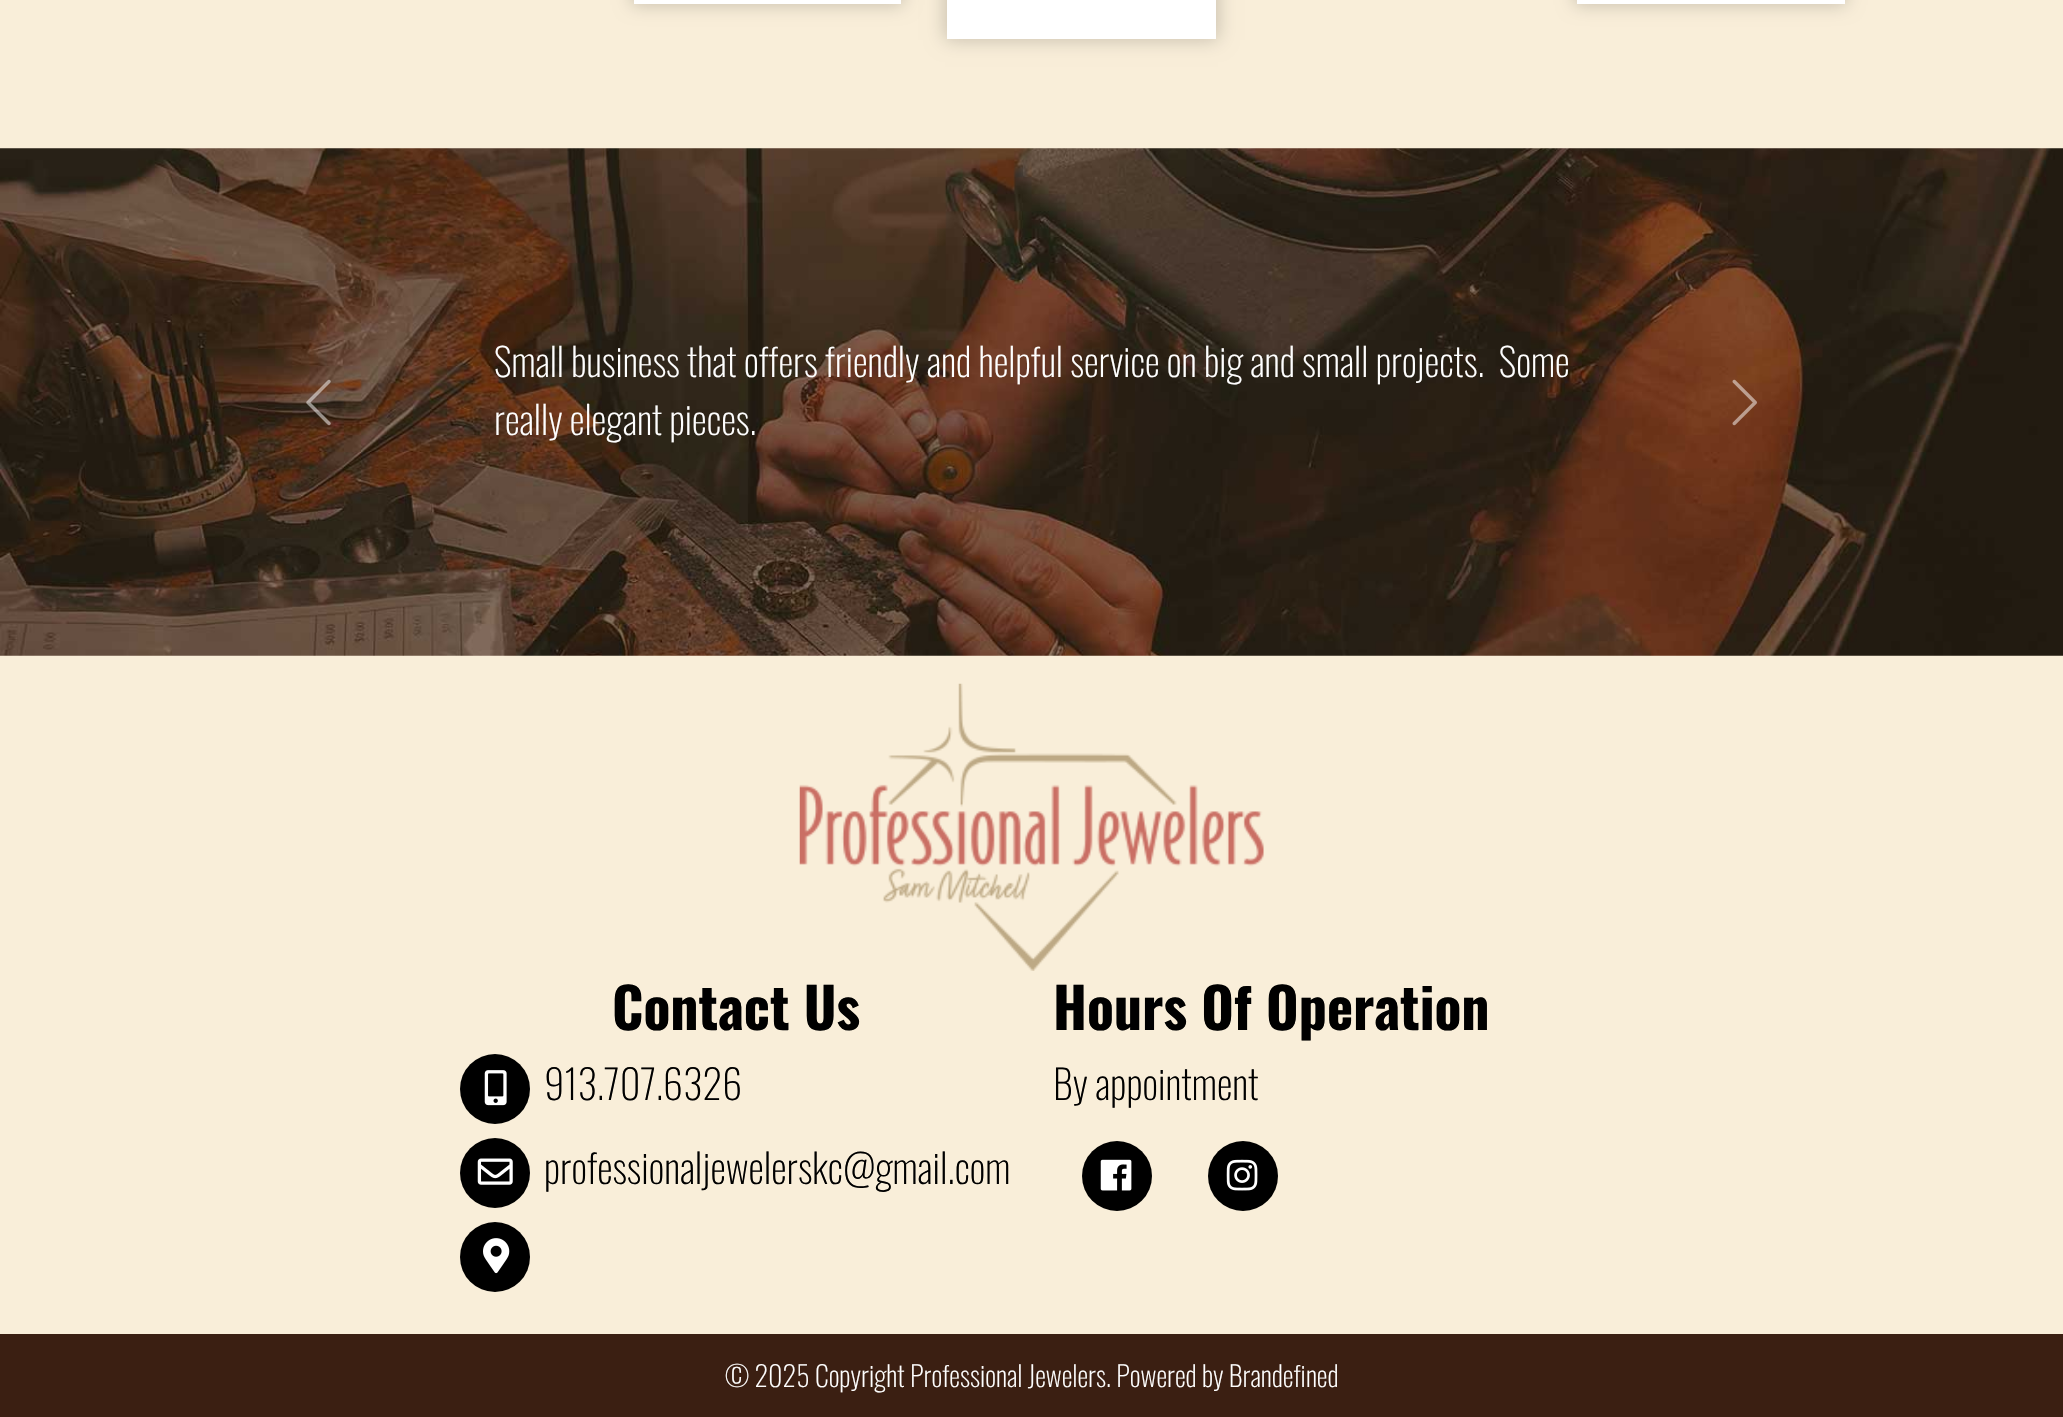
void draw(SkCanvas* canvas) {
	SkPaint fill;
	fill.setAntiAlias(true);
	auto makeFont = [&](const char* family, int weight, float size, bool italic = false) {
		SkFontStyle style(weight, SkFontStyle::kNormal_Width,
			italic ? SkFontStyle::kItalic_Slant : SkFontStyle::kUpright_Slant);
		SkFont result(fontMgr->matchFamilyStyle(family, style), size);
		result.setSubpixel(true);
		return result;
	};
	auto text = [&](const char* s, float x, float y, const SkFont& font) {
		canvas->drawString(s, x, y, font, fill);
	};
	auto box = [&](float l, float t, float r, float b) {
		canvas->drawRect(SkRect::MakeLTRB(l, t, r, b), fill);
	};
	auto picture = [&](const char* path, float l, float t, float r, float b) {
		auto image = SkImages::DeferredFromEncodedData(SkData::MakeFromFileName(path));
		canvas->drawImageRect(image, SkRect::MakeLTRB(l, t, r, b), SkSamplingOptions());
	};
	canvas->clear(0xFFF9EED9);
	fill.setColor(0x33000000);
	fill.setMaskFilter(SkMaskFilter::MakeBlur(kNormal_SkBlurStyle, 9));
	canvas->drawRect(SkRect::MakeLTRB(632, -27, 903, 5), fill);
	fill.setMaskFilter(nullptr);
	fill.setColor(0xFFFFFFFF);
	box(634, 0, 901, 4);
	fill.setColor(0x33000000);
	fill.setMaskFilter(SkMaskFilter::MakeBlur(kNormal_SkBlurStyle, 9));
	canvas->drawRect(SkRect::MakeLTRB(945, -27, 1218, 40), fill);
	fill.setMaskFilter(nullptr);
	fill.setColor(0xFFFFFFFF);
	box(947, 0, 1216, 39);
	fill.setColor(0x33000000);
	fill.setMaskFilter(SkMaskFilter::MakeBlur(kNormal_SkBlurStyle, 9));
	canvas->drawRect(SkRect::MakeLTRB(1575, -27, 1846, 5), fill);
	fill.setMaskFilter(nullptr);
	fill.setColor(0xFFFFFFFF);
	box(1577, 0, 1845, 4);
	picture("image0.png", 0, 148, 2063, 656);
	picture("image1.png", 306, 379, 331, 426);
	picture("image2.png", 1732, 379, 1757, 426);
	picture("image3.png", 799, 683, 1264, 971);
	fill.setColor(0xFF000000);
	canvas->drawCircle(495, 1089, 35, fill);
	picture("image4.png", 484, 1070, 507, 1106);
	canvas->drawCircle(495, 1173, 35, fill);
	picture("image5.png", 477, 1158, 513, 1185);
	canvas->drawCircle(495, 1257, 35, fill);
	picture("image6.png", 483, 1238, 510, 1274);
	canvas->drawCircle(1117, 1176, 35, fill);
	picture("image7.png", 1100, 1159, 1132, 1191);
	canvas->drawCircle(1243, 1176, 35, fill);
	picture("image8.png", 1226, 1159, 1258, 1191);
	fill.setColor(0xFF3B1F12);
	box(0, 1334, 2063, 1417);
	auto font1 = makeFont("Oswald", 200, 38.5f);
	fill.setColor(0xFFFFFFFF);
	text("Small business that offers friendly and helpful service on big and small projects.  Some", 494, 377, font1);
	text("really elegant pieces.", 494, 435, font1);
	auto font2 = makeFont("Oswald", 700, 55.75f);
	fill.setColor(0xFF000000);
	text("Contact Us", 612, 1030, font2);
	auto font3 = makeFont("Oswald", 200, 40.25f);
	text("913.707.6326", 544, 1100, font3);
	text("professionaljewelerskc@gmail.com", 544, 1184, font3);
	text("Hours Of Operation", 1053, 1030, font2);
	text("By appointment", 1053, 1100, font3);
	auto font4 = makeFont("Oswald", 200, 28);
	fill.setColor(0xFFFFFFFF);
	text("© 2025 Copyright Professional Jewelers. Powered by Brandefined", 725, 1387, font4);
}
